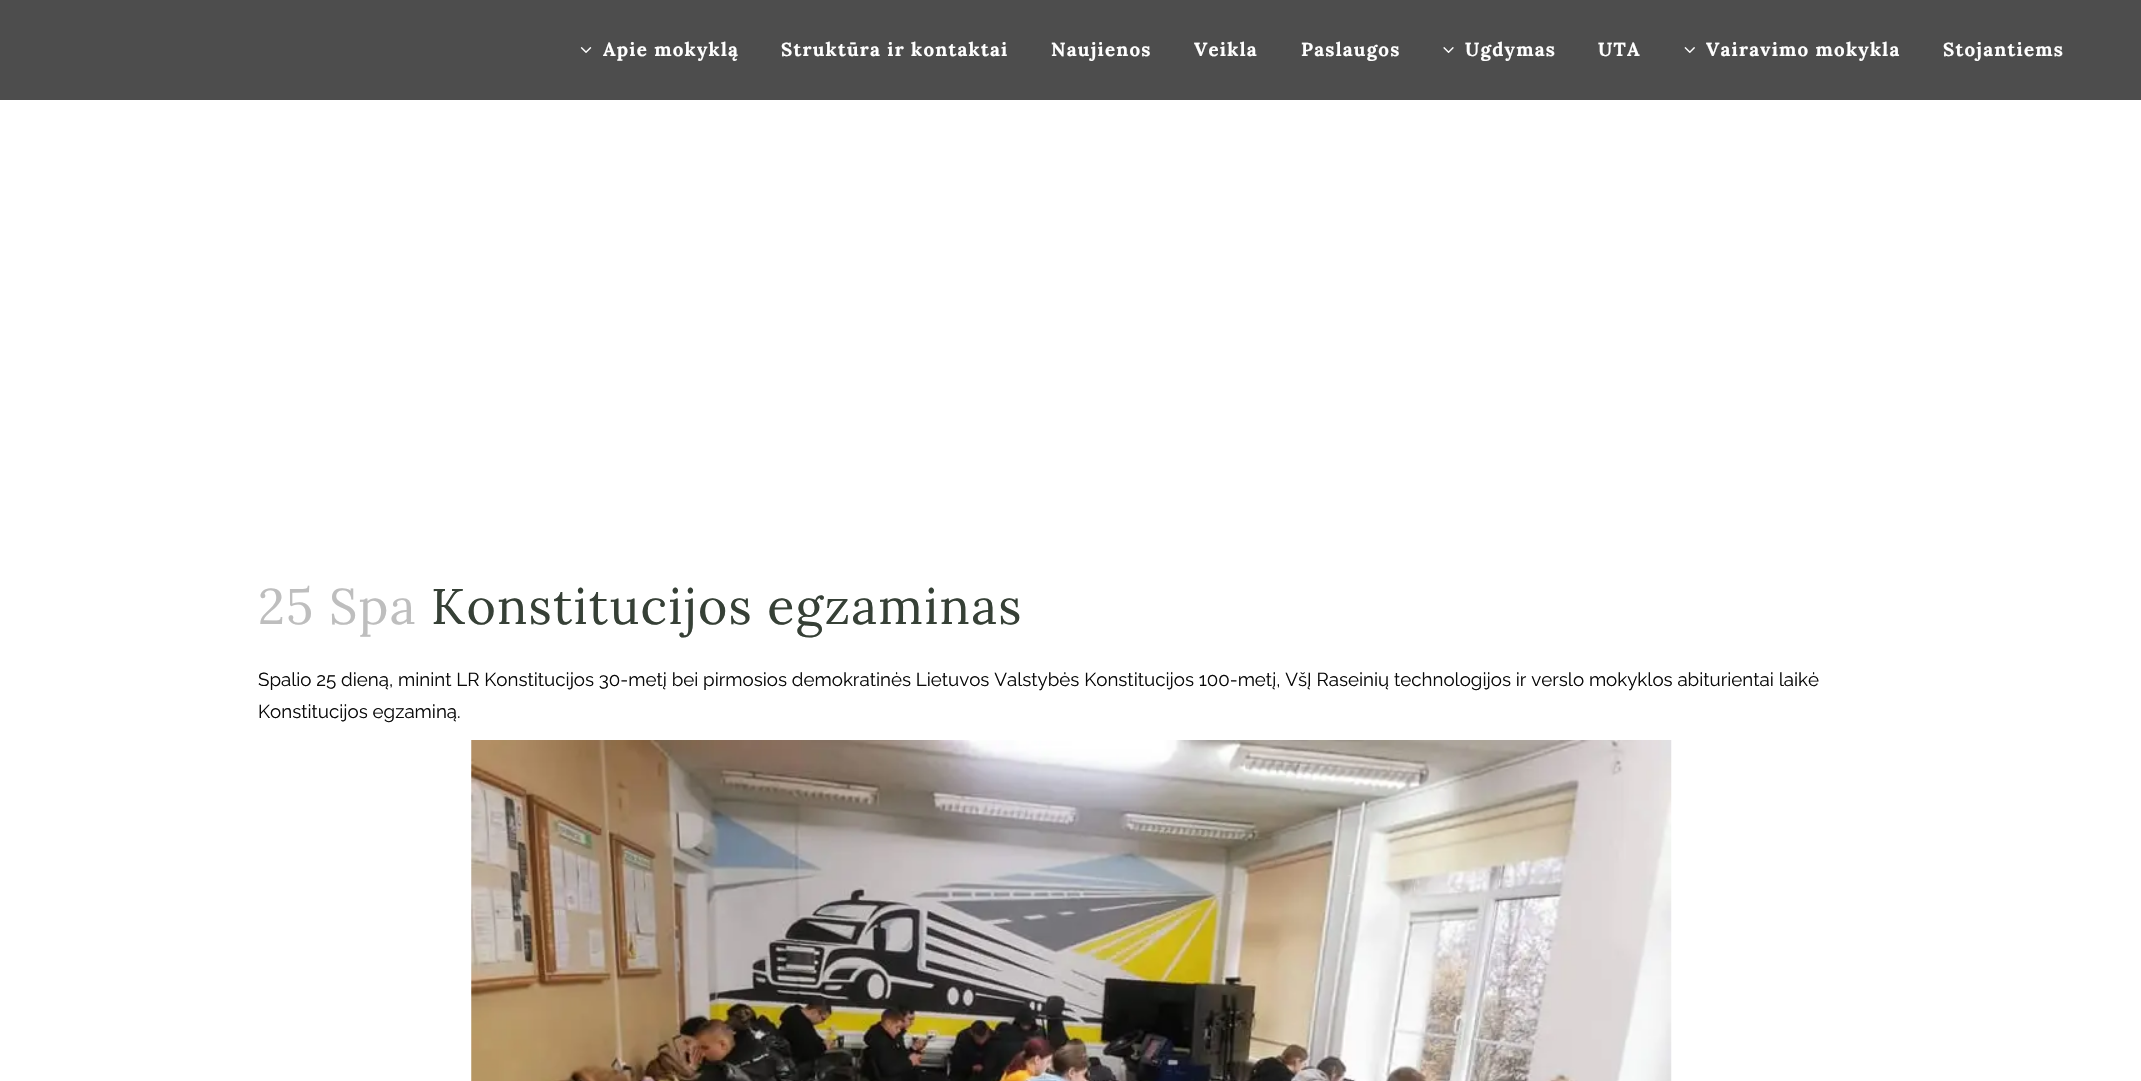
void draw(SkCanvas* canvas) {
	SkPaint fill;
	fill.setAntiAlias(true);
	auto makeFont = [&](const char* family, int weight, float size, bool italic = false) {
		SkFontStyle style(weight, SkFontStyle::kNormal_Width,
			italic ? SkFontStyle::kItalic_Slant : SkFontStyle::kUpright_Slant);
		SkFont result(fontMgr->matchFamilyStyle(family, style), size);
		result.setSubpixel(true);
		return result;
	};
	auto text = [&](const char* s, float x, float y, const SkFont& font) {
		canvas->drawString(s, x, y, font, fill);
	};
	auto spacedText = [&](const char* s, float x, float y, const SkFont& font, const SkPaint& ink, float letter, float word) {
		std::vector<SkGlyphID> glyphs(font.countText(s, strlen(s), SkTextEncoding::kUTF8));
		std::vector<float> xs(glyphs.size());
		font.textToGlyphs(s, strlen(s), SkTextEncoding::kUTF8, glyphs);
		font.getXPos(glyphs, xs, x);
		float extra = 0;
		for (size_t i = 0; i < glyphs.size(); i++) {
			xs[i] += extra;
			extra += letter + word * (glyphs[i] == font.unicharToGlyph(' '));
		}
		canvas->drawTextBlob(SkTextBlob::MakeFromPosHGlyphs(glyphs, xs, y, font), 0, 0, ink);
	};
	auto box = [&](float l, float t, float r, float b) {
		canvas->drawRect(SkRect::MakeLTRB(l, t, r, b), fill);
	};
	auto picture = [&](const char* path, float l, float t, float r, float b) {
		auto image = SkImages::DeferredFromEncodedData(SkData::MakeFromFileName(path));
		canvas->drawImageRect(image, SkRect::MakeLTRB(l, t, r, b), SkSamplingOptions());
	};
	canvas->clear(0xFFFFFFFF);
	fill.setColor(0xFF4D4D4D);
	box(0, 0, 2141, 100);
	picture("image0.png", 580, 47, 592, 53);
	picture("image1.png", 1443, 47, 1454, 53);
	picture("image2.png", 1684, 47, 1695, 53);
	picture("image3.png", 471, 740, 1672, 1081);
	auto font1 = makeFont("Lora", 700, 18.75f);
	fill.setColor(0xFFFFFFFF);
	spacedText("Apie mokyklą", 603, 56, font1, fill, 1.25f, 0);
	spacedText("Struktūra ir kontaktai", 781, 56, font1, fill, 1.25f, 0);
	spacedText("Naujienos", 1051, 56, font1, fill, 1.25f, 0);
	spacedText("Veikla", 1194, 56, font1, fill, 1.25f, 0);
	spacedText("Paslaugos", 1301, 56, font1, fill, 1.25f, 0);
	spacedText("Ugdymas", 1465, 56, font1, fill, 1.25f, 0);
	spacedText("UTA", 1598, 56, font1, fill, 1.25f, 0);
	spacedText("Vairavimo mokykla", 1706, 56, font1, fill, 1.25f, 0);
	spacedText("Stojantiems", 1943, 56, font1, fill, 1.25f, 0);
	auto font2 = makeFont("Lora", 400, 50);
	fill.setColor(0xFFBEBEBE);
	spacedText("25 Spa", 258, 624, font2, fill, 1.25f, 0);
	fill.setColor(0xFF364036);
	spacedText("Konstitucijos egzaminas", 431, 624, font2, fill, 1.25f, 0);
	auto font3 = makeFont("Raleway", 400, 18.75f);
	fill.setColor(0xFF0A0A0A);
	text("Spalio 25 dieną, minint LR Konstitucijos 30-metį bei pirmosios demokratinės Lietuvos Valstybės Konstitucijos 100-metį, VšĮ Raseinių technologijos ir verslo mokyklos abiturientai laikė", 258, 686, font3);
	text("Konstitucijos egzaminą.", 258, 718, font3);
}
